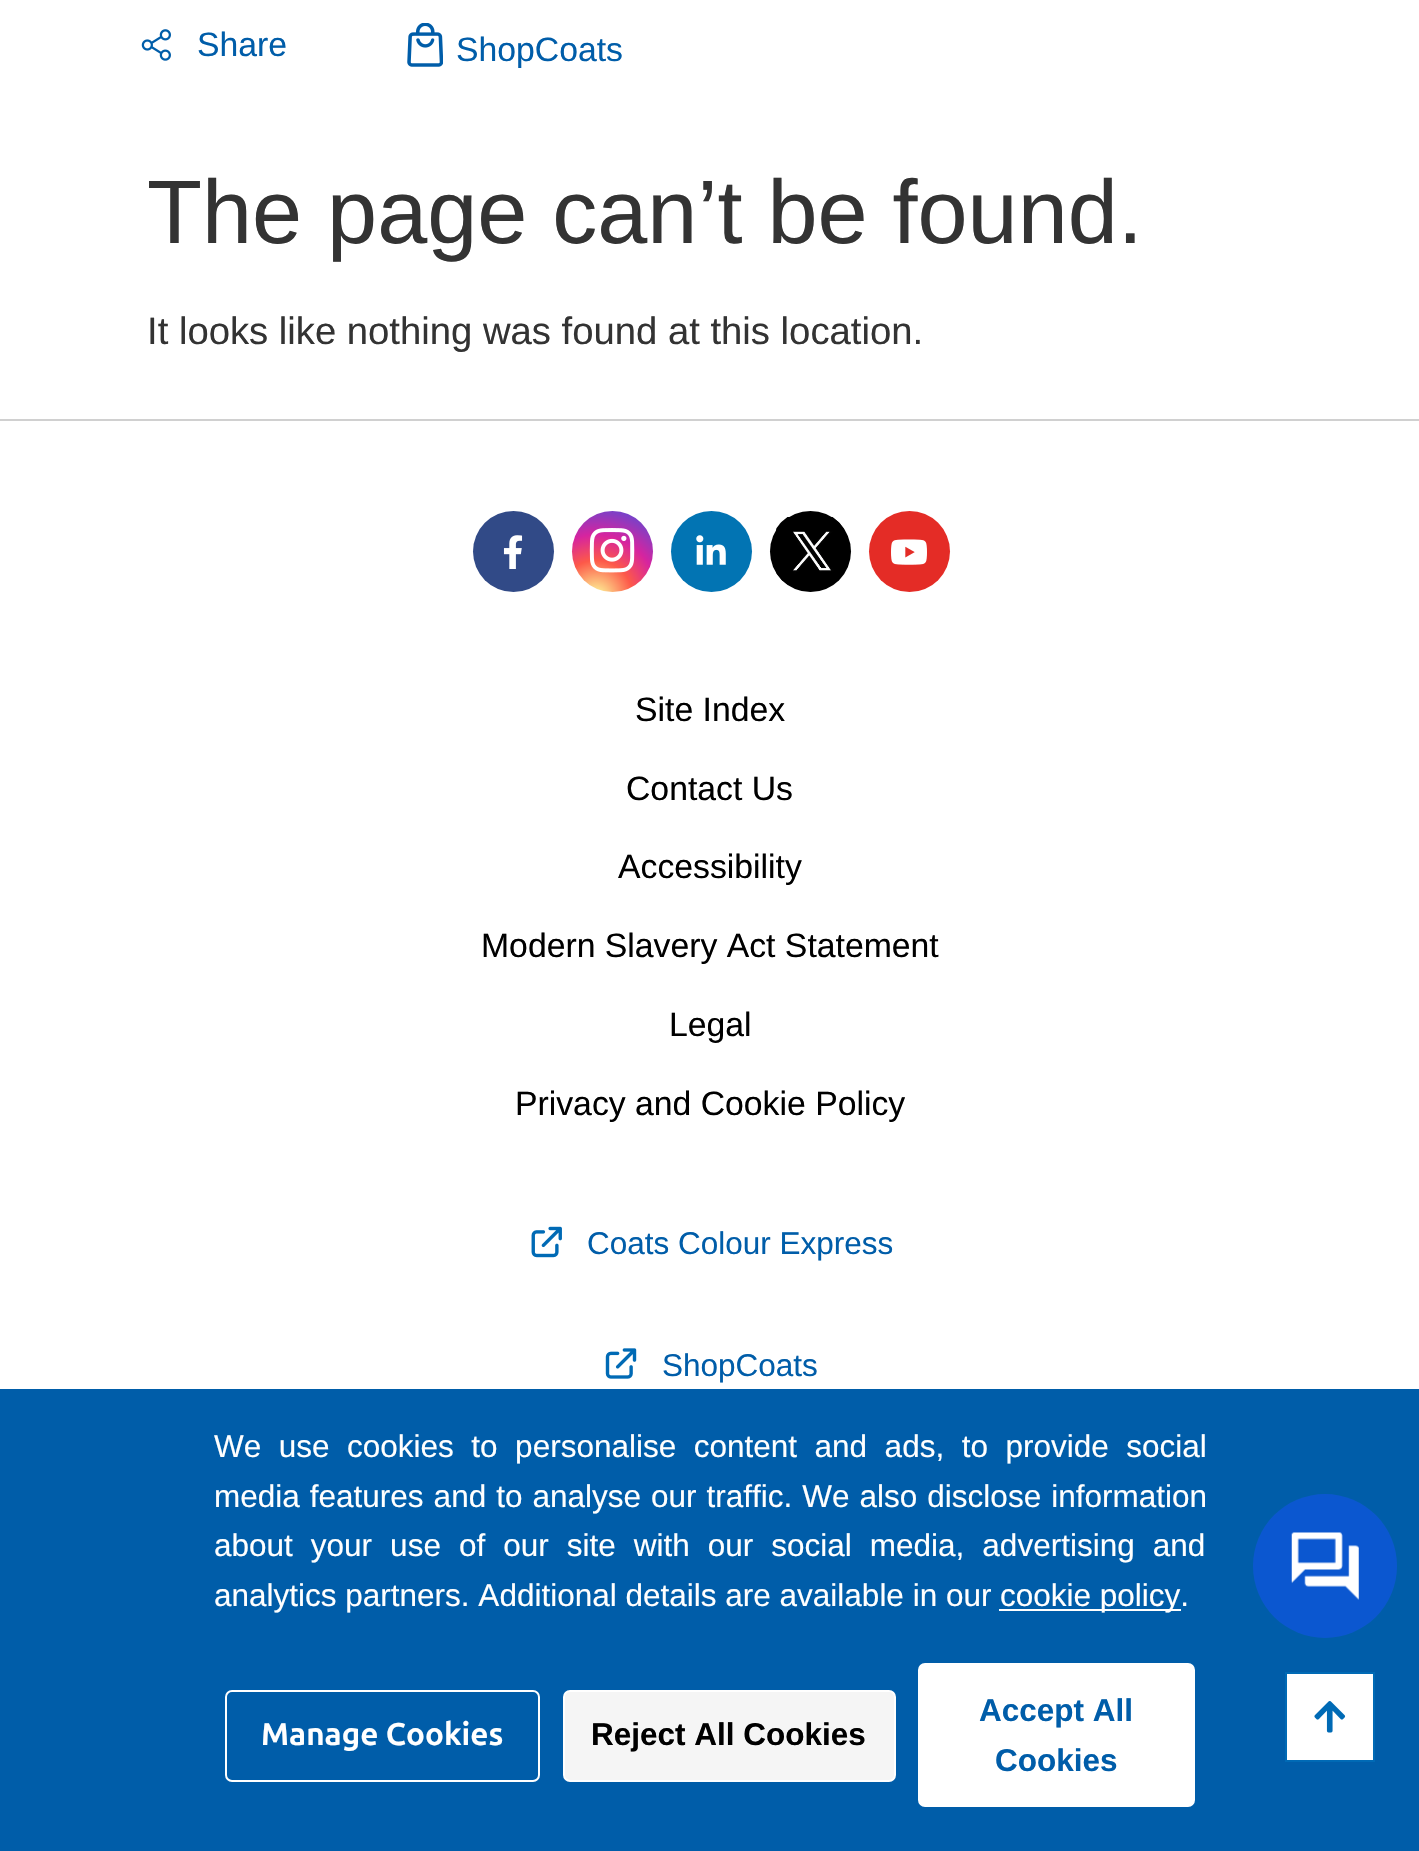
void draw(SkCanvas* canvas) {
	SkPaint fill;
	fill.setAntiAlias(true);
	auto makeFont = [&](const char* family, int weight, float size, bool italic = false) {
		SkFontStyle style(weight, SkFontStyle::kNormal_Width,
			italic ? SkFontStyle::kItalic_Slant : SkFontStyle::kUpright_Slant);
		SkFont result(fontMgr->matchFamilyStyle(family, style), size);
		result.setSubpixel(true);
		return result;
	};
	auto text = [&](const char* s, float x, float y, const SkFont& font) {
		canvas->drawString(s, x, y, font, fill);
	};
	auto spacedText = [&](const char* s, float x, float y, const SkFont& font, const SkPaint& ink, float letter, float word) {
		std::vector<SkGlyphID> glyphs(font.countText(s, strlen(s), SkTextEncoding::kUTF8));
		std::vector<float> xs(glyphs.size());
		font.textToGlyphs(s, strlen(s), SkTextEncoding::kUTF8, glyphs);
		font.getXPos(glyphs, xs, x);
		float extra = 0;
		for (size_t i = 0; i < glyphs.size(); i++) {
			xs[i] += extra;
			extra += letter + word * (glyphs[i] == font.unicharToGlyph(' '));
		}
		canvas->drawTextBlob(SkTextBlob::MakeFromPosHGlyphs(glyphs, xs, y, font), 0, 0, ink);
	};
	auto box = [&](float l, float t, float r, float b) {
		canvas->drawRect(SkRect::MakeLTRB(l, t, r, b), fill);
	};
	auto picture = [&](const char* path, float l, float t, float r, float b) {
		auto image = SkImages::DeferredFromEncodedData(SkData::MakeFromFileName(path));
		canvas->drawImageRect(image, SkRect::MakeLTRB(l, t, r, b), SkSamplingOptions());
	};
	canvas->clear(0xFFFFFFFF);
	picture("image0.png", 141, 29, 171, 61);
	picture("image1.png", 407, 23, 443, 67);
	fill.setColor(0xFFD0D0D0);
	box(0, 419, 1419, 421);
	fill.setColor(0xFF314A87);
	canvas->drawCircle(513.5f, 551.5f, 40.5f, fill);
	picture("image2.png", 503, 535, 523, 569);
	{
		const SkColor colors[] = {0xFFFDF497, 0xFFFDF497, 0xFFFD5949, 0xFFD6249F, 0xFF285AEB};
		const float stops[] = {0, 0.03f, 0.33f, 0.56f, 1};
		fill.setShader(SkGradientShader::MakeRadial({596, 597}, 111, colors, stops, 5, SkTileMode::kClamp));
		fill.setAlpha(255);
	}
	canvas->drawCircle(612.5f, 551.5f, 40.5f, fill);
	picture("image3.png", 589, 528, 635, 573);
	fill.setShader(nullptr);
	fill.setColor(0xFF0274B3);
	canvas->drawCircle(711.5f, 551.5f, 40.5f, fill);
	picture("image4.png", 696, 535, 726, 565);
	fill.setColor(0xFF000000);
	canvas->drawCircle(810.5f, 551.5f, 40.5f, fill);
	picture("image5.png", 776, 517, 844, 585);
	fill.setColor(0xFFE42C26);
	canvas->drawCircle(909.5f, 551.5f, 40.5f, fill);
	picture("image6.png", 891, 539, 927, 565);
	picture("image7.png", 531, 1226, 562, 1258);
	picture("image8.png", 605, 1348, 637, 1379);
	fill.setColor(0xFF005DA9);
	box(0, 1389, 1419, 1851);
	fill.setColor(0xFFFFFFFF);
	canvas->drawRect(SkRect::MakeLTRB(1286, 1673, 1374, 1761), fill);
	fill.setStyle(SkPaint::kStroke_Style);
	fill.setStrokeWidth(2);
	fill.setColor(0xFF006AB5);
	canvas->drawRect(SkRect::MakeLTRB(1286, 1673, 1374, 1761), fill);
	picture("image9.png", 1314, 1701, 1346, 1733);
	fill.setStyle(SkPaint::kFill_Style);
	fill.setColor(0xFFFFFFFF);
	box(999, 1609, 1181, 1611);
	fill.setStyle(SkPaint::kStroke_Style);
	canvas->drawRoundRect(SkRect::MakeLTRB(226, 1691, 539, 1781), 6, 6, fill);
	fill.setStyle(SkPaint::kFill_Style);
	fill.setColor(0xFFF5F5F5);
	canvas->drawRoundRect(SkRect::MakeLTRB(564, 1691, 895, 1781), 6, 6, fill);
	fill.setStyle(SkPaint::kStroke_Style);
	fill.setColor(0xFFFFFFFF);
	canvas->drawRoundRect(SkRect::MakeLTRB(564, 1691, 895, 1781), 6, 6, fill);
	fill.setStyle(SkPaint::kFill_Style);
	canvas->drawRoundRect(SkRect::MakeLTRB(919, 1664, 1194, 1806), 6, 6, fill);
	fill.setStyle(SkPaint::kStroke_Style);
	canvas->drawRoundRect(SkRect::MakeLTRB(919, 1664, 1194, 1806), 6, 6, fill);
	fill.setStyle(SkPaint::kFill_Style);
	fill.setColor(0xFF0B57D0);
	canvas->drawCircle(1325, 1566, 72, fill);
	picture("image10.png", 1291, 1532, 1359, 1600);
	auto font1 = makeFont("Liberation Sans", 400, 33.75f);
	fill.setColor(0xFF005DA9);
	text("Share", 197, 56, font1);
	text("ShopCoats", 456, 61, font1);
	auto font2 = makeFont("Liberation Sans", 400, 90);
	fill.setColor(0xFF333333);
	text("The page can’t be found.", 147, 243, font2);
	auto font3 = makeFont("Liberation Sans", 400, 38.25f);
	text("It looks like nothing was found at this location.", 147, 344, font3);
	fill.setColor(0xFF000000);
	text("Site Index", 635, 721, font1);
	text("Contact Us", 626, 800, font1);
	text("Accessibility", 618, 878, font1);
	text("Modern Slavery Act Statement", 481, 957, font1);
	text("Legal", 669, 1036, font1);
	text("Privacy and Cookie Policy", 515, 1115, font1);
	auto font4 = makeFont("Liberation Sans", 400, 31.5f);
	fill.setColor(0xFF005DA9);
	text("Coats Colour Express", 587, 1254, font4);
	text("ShopCoats", 662, 1376, font4);
	fill.setColor(0xFFFFFFFF);
	spacedText("We use cookies to personalise content and ads, to provide social", 214, 1457, font4, fill, 0, 8.75f);
	spacedText("media features and to analyse our traffic. We also disclose information", 214, 1507, font4, fill, 0, 1.25f);
	spacedText("about your use of our site with our social media, advertising and", 214, 1556, font4, fill, 0, 9.25f);
	text("analytics partners. Additional details are available in our", 214, 1606, font4);
	text("cookie policy.", 1000, 1606, font4);
	auto font5 = makeFont("Ubuntu", 700, 31.5f);
	text("Manage Cookies", 261, 1745, font5);
	auto font6 = makeFont("Liberation Sans", 700, 31.5f);
	fill.setColor(0xFF000000);
	text("Reject All Cookies", 591, 1745, font6);
	fill.setColor(0xFF005DA9);
	text("Accept All", 979, 1721, font6);
	text("Cookies", 995, 1771, font6);
}
